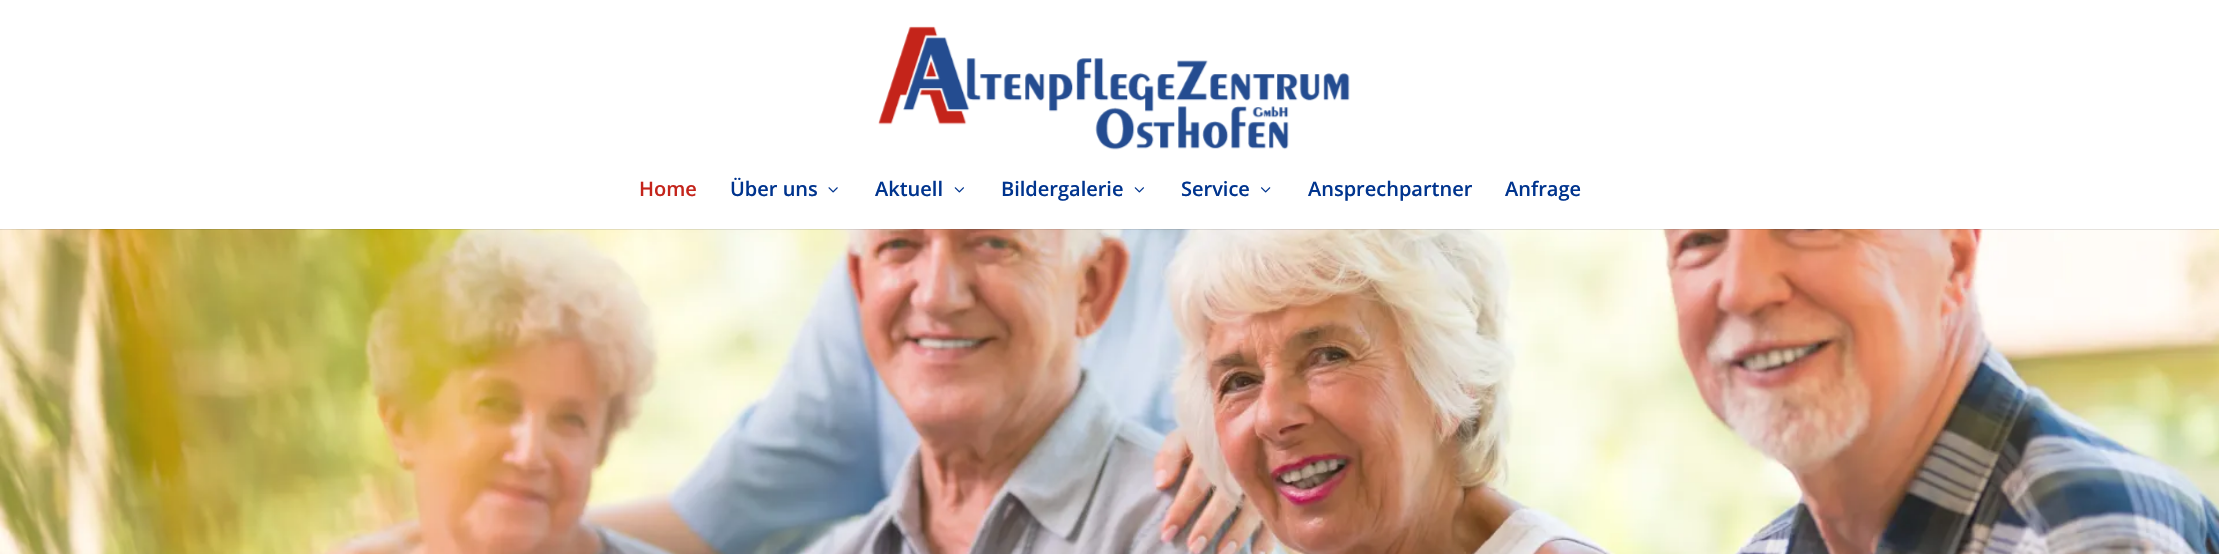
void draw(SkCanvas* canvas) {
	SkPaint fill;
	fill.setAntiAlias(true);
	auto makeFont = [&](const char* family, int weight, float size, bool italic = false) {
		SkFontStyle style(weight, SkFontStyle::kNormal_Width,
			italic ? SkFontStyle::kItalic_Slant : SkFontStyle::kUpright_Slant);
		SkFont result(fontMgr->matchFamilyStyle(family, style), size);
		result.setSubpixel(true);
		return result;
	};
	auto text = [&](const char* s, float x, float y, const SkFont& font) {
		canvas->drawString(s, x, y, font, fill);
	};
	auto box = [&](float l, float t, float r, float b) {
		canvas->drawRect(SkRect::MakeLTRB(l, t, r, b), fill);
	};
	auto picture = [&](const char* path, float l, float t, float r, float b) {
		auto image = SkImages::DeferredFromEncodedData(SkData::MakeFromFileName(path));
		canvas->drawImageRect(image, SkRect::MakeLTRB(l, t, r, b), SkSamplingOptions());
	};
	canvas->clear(0xFFFFFFFF);
	picture("image4.png", 0, 229, 2219, 554);
	fill.setColor(0x1A000000);
	box(0, 229, 2219, 230);
	picture("image0.png", 878, 26, 1350, 150);
	picture("image1.png", 828, 187, 838, 193);
	picture("image2.png", 954, 187, 964, 193);
	picture("image2.png", 1134, 187, 1144, 193);
	picture("image3.png", 1261, 187, 1271, 193);
	auto font1 = makeFont("Open Sans", 600, 20);
	fill.setColor(0xFFC4241B);
	text("Home", 639, 196, font1);
	fill.setColor(0xFF00348E);
	text("Über uns", 730, 196, font1);
	text("Aktuell", 875, 196, font1);
	text("Bildergalerie", 1001, 196, font1);
	text("Service", 1181, 196, font1);
	text("Ansprechpartner", 1308, 196, font1);
	text("Anfrage", 1505, 196, font1);
}
